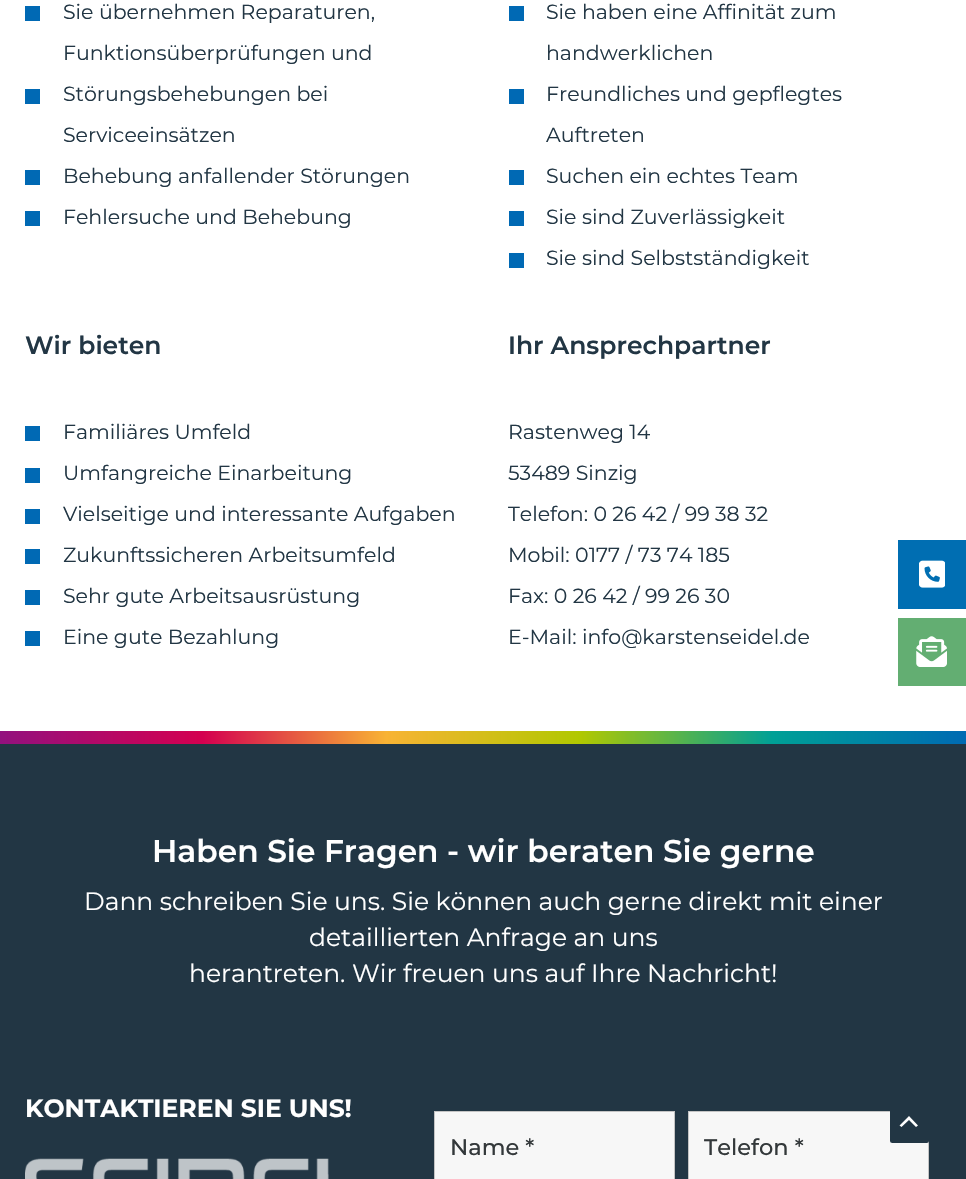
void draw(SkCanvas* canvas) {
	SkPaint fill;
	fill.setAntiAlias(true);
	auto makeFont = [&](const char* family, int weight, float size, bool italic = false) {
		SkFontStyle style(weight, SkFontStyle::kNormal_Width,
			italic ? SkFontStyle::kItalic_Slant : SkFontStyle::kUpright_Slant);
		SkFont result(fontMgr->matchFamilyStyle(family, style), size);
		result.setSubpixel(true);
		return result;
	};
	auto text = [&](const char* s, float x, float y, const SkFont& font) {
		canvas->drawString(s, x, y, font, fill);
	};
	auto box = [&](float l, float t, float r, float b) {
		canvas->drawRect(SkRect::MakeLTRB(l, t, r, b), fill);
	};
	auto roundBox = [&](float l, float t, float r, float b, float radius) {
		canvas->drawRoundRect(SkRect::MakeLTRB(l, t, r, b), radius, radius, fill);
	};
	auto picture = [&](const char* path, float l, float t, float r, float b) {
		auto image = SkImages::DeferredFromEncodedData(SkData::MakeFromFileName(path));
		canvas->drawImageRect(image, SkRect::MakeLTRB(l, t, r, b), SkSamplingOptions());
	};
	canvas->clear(0xFFFFFFFF);
	fill.setColor(0xFF0069B4);
	box(25, 6, 40, 21);
	box(25, 89, 40, 104);
	box(25, 170, 40, 185);
	box(25, 211, 40, 226);
	box(509, 6, 524, 21);
	box(509, 89, 524, 104);
	box(509, 170, 524, 185);
	box(509, 211, 524, 226);
	box(509, 253, 524, 268);
	box(25, 426, 40, 441);
	box(25, 468, 40, 483);
	box(25, 509, 40, 524);
	box(25, 549, 40, 564);
	box(25, 590, 40, 605);
	box(25, 631, 40, 646);
	{
		const SkColor colors[] = {0xFF93117E, 0xFFD40050, 0xFFF8B334, 0xFFB1C800, 0xFF00A096, 0xFF006AB3};
		const float stops[] = {0, 0.21f, 0.4f, 0.6f, 0.8f, 1};
		const SkPoint ends[] = {{0, 738}, {966, 738}};
		fill.setShader(SkGradientShader::MakeLinear(ends, colors, stops, 6, SkTileMode::kClamp));
		fill.setAlpha(255);
	}
	box(0, 731, 966, 744);
	fill.setShader(nullptr);
	fill.setColor(0xFF223644);
	box(0, 744, 966, 1179);
	picture("image0.png", 25, 1158, 329, 1179);
	fill.setColor(0xFF006EB2);
	box(898, 540, 966, 609);
	picture("image1.png", 919, 560, 945, 588);
	fill.setColor(0xFF63AE72);
	box(898, 618, 966, 686);
	picture("image2.png", 916, 636, 947, 667);
	fill.setColor(0xFFF7F7F7);
	canvas->drawRect(SkRect::MakeLTRB(434.5f, 1111.5f, 674.5f, 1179.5f), fill);
	fill.setStyle(SkPaint::kStroke_Style);
	fill.setStrokeWidth(1);
	fill.setColor(0xFFC4C4C4);
	canvas->drawRect(SkRect::MakeLTRB(434.5f, 1111.5f, 674.5f, 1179.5f), fill);
	fill.setStyle(SkPaint::kFill_Style);
	fill.setColor(0xFFF7F7F7);
	canvas->drawRect(SkRect::MakeLTRB(688.5f, 1111.5f, 928.5f, 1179.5f), fill);
	fill.setStyle(SkPaint::kStroke_Style);
	fill.setColor(0xFFC4C4C4);
	canvas->drawRect(SkRect::MakeLTRB(688.5f, 1111.5f, 928.5f, 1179.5f), fill);
	fill.setStyle(SkPaint::kFill_Style);
	fill.setColor(0xFF223644);
	roundBox(890, 1104, 929, 1143, 2.5f);
	fill.setColor(0xFFFFFFFF);
	canvas->drawPath(SkPathBuilder().moveTo(918, 1125.5f).lineTo(909, 1116).lineTo(899.5f, 1125.5f).lineTo(901.5f, 1127).lineTo(909, 1120).lineTo(916, 1127).close().detach(), fill);
	auto font1 = makeFont("Montserrat", 400, 20.5f);
	fill.setColor(0xFF223644);
	text("Sie übernehmen Reparaturen,", 63, 19, font1);
	text("Funktionsüberprüfungen und", 63, 60, font1);
	text("Störungsbehebungen bei", 63, 101, font1);
	text("Serviceeinsätzen", 63, 142, font1);
	text("Behebung anfallender Störungen", 63, 183, font1);
	text("Fehlersuche und Behebung", 63, 224, font1);
	text("Sie haben eine Affinität zum", 546, 19, font1);
	text("handwerklichen", 546, 60, font1);
	text("Freundliches und gepflegtes", 546, 101, font1);
	text("Auftreten", 546, 142, font1);
	text("Suchen ein echtes Team", 546, 183, font1);
	text("Sie sind Zuverlässigkeit", 546, 224, font1);
	text("Sie sind Selbstständigkeit", 546, 265, font1);
	auto font2 = makeFont("Montserrat", 600, 25);
	text("Wir bieten", 25, 354, font2);
	text("Familiäres Umfeld", 63, 439, font1);
	text("Umfangreiche Einarbeitung", 63, 480, font1);
	text("Vielseitige und interessante Aufgaben", 63, 521, font1);
	text("Zukunftssicheren Arbeitsumfeld", 63, 562, font1);
	text("Sehr gute Arbeitsausrüstung", 63, 603, font1);
	text("Eine gute Bezahlung", 63, 644, font1);
	text("Ihr Ansprechpartner", 508, 354, font2);
	text("Rastenweg 14", 508, 439, font1);
	text("53489 Sinzig", 508, 480, font1);
	text("Telefon: 0 26 42 / 99 38 32", 508, 521, font1);
	text("Mobil: 0177 / 73 74 185", 508, 562, font1);
	text("Fax: 0 26 42 / 99 26 30", 508, 603, font1);
	text("E-Mail: info@karstenseidel.de", 508, 644, font1);
	auto font3 = makeFont("Montserrat", 600, 31.25f);
	fill.setColor(0xFFFFFFFF);
	text("Haben Sie Fragen - wir beraten Sie gerne", 152, 862, font3);
	auto font4 = makeFont("Montserrat", 400, 25);
	text("Dann schreiben Sie uns. Sie können auch gerne direkt mit einer", 84, 910, font4);
	text("detaillierten Anfrage an uns", 309, 946, font4);
	text("herantreten. Wir freuen uns auf Ihre Nachricht!", 189, 982, font4);
	auto font5 = makeFont("Montserrat", 700, 25);
	text("KONTAKTIEREN SIE UNS!", 25, 1117, font5);
	auto font6 = makeFont("Montserrat", 500, 22.5f);
	fill.setColor(0xFF33383A);
	text("Name *", 450, 1155, font6);
	text("Telefon *", 704, 1155, font6);
}
